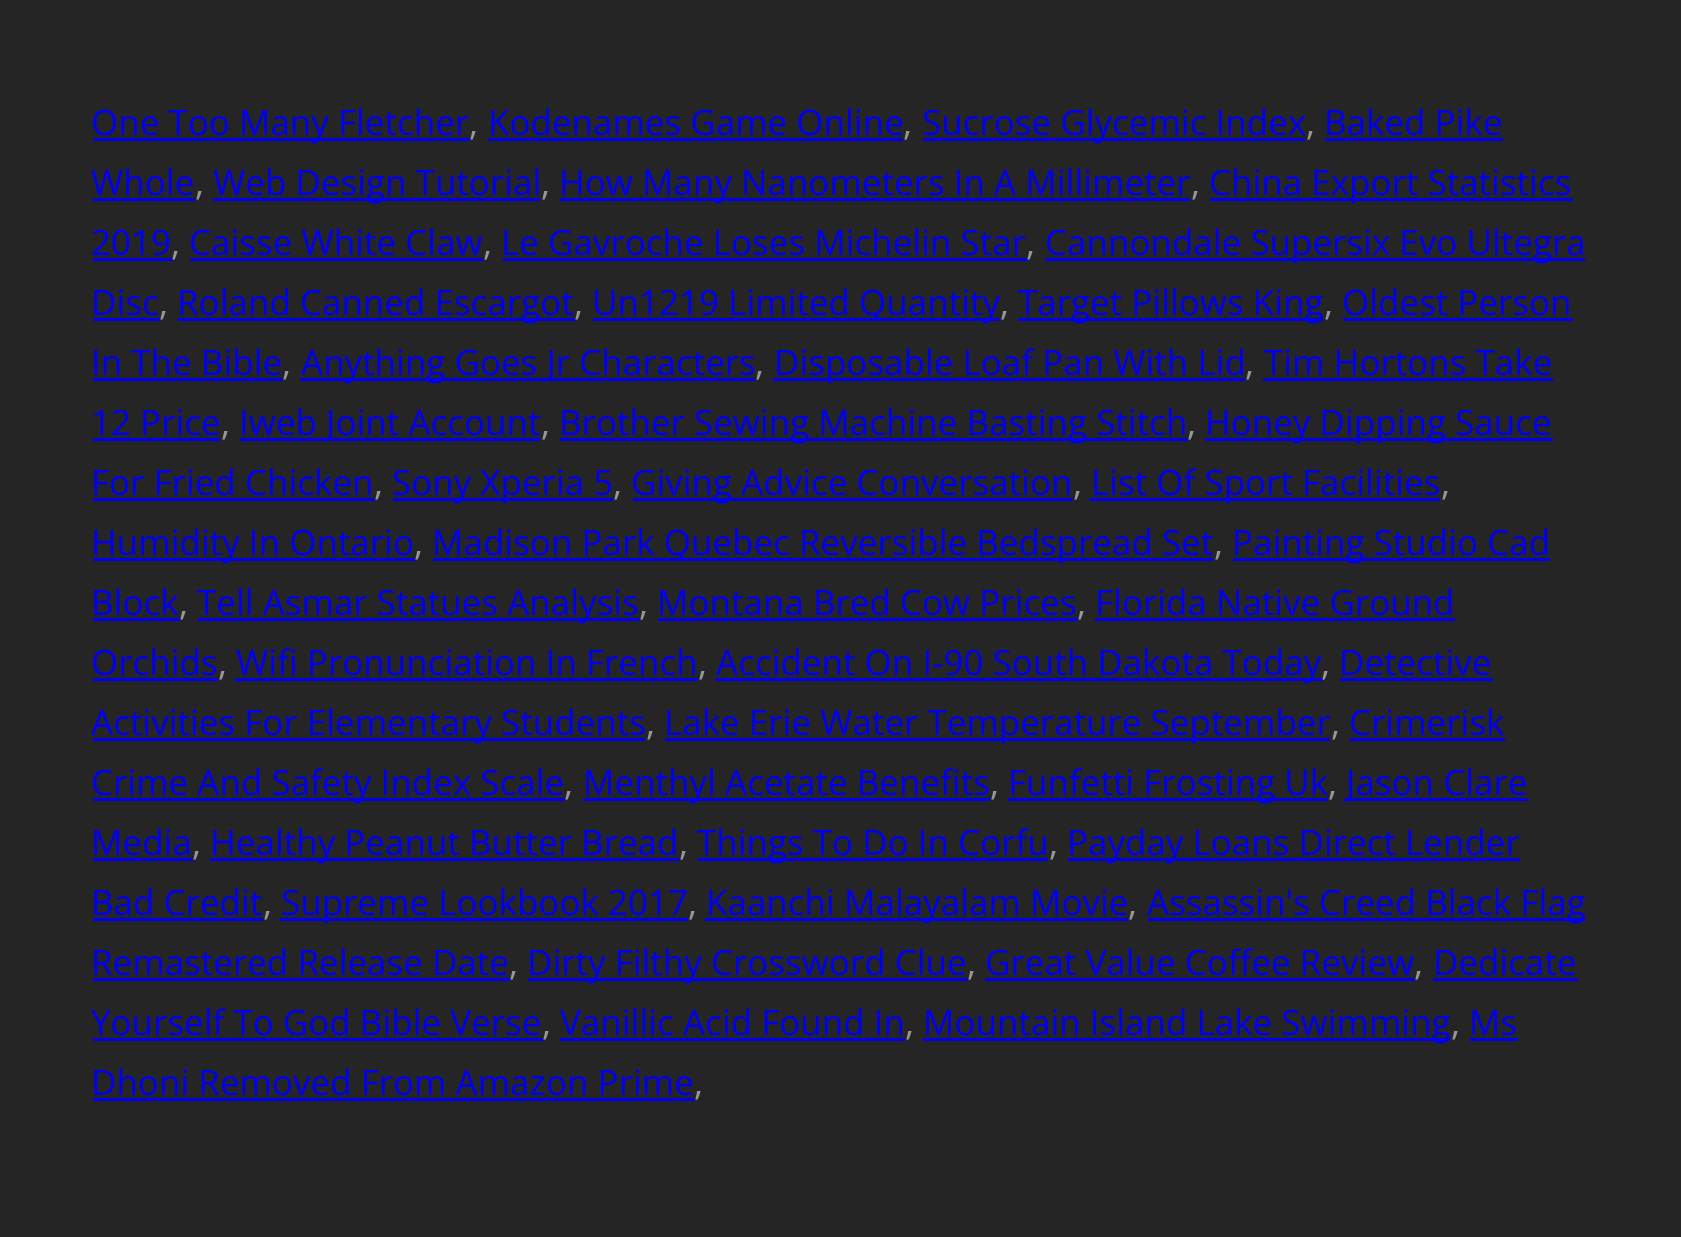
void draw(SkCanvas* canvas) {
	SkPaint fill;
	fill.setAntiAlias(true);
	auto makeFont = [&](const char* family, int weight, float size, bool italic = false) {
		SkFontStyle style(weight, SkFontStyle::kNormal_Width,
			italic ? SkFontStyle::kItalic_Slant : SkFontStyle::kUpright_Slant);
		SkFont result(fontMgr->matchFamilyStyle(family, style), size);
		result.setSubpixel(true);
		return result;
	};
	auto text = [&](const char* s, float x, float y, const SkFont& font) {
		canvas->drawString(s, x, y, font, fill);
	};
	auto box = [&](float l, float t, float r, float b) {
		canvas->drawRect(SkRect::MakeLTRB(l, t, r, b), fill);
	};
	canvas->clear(0xFF252525);
	fill.setColor(0xFF0000EE);
	box(93, 138, 470, 141);
	box(488, 138, 903, 141);
	box(923, 138, 1305, 141);
	box(1325, 138, 1503, 141);
	box(93, 198, 195, 201);
	box(213, 198, 540, 201);
	box(560, 198, 1190, 201);
	box(1210, 198, 1573, 201);
	box(93, 258, 173, 261);
	box(190, 258, 483, 261);
	box(503, 258, 1028, 261);
	box(1045, 258, 1585, 261);
	box(93, 318, 160, 321);
	box(178, 318, 575, 321);
	box(593, 318, 1000, 321);
	box(1018, 318, 1323, 321);
	box(1343, 318, 1573, 321);
	box(93, 378, 283, 381);
	box(300, 378, 755, 381);
	box(773, 378, 1245, 381);
	box(1263, 378, 1553, 381);
	box(93, 438, 220, 441);
	box(240, 438, 540, 441);
	box(560, 438, 1188, 441);
	box(1205, 438, 1553, 441);
	box(93, 498, 375, 501);
	box(393, 498, 613, 501);
	box(633, 498, 1073, 501);
	box(1090, 498, 1440, 501);
	box(93, 558, 415, 561);
	box(433, 558, 1213, 561);
	box(1233, 558, 1550, 561);
	box(93, 618, 180, 621);
	box(198, 618, 640, 621);
	box(658, 618, 1078, 621);
	box(1095, 618, 1455, 621);
	box(93, 678, 218, 681);
	box(235, 678, 698, 681);
	box(715, 678, 1323, 681);
	box(1340, 678, 1493, 681);
	box(93, 738, 645, 741);
	box(665, 738, 1330, 741);
	box(1350, 738, 1505, 741);
	box(93, 798, 565, 801);
	box(583, 798, 990, 801);
	box(1008, 798, 1328, 801);
	box(1345, 798, 1528, 801);
	box(93, 858, 193, 861);
	box(210, 858, 680, 861);
	box(698, 858, 1048, 861);
	box(1068, 858, 1520, 861);
	box(93, 918, 263, 921);
	box(280, 918, 688, 921);
	box(705, 918, 1128, 921);
	box(1148, 918, 1585, 921);
	box(93, 978, 510, 981);
	box(528, 978, 968, 981);
	box(985, 978, 1415, 981);
	box(1433, 978, 1578, 981);
	box(93, 1038, 543, 1041);
	box(560, 1038, 905, 1041);
	box(923, 1038, 1450, 1041);
	box(1470, 1038, 1518, 1041);
	box(93, 1098, 695, 1101);
	auto font1 = makeFont("Open Sans", 400, 35);
	text("One Too Many Fletcher", 91, 135, font1);
	fill.setColor(0xFF979797);
	text(",", 469, 135, font1);
	fill.setColor(0xFF0000EE);
	text("Kodenames Game Online", 488, 135, font1);
	fill.setColor(0xFF979797);
	text(",", 903, 135, font1);
	fill.setColor(0xFF0000EE);
	text("Sucrose Glycemic Index", 922, 135, font1);
	fill.setColor(0xFF979797);
	text(",", 1306, 135, font1);
	fill.setColor(0xFF0000EE);
	text("Baked Pike", 1324, 135, font1);
	text("Whole", 91, 195, font1);
	fill.setColor(0xFF979797);
	text(",", 195, 195, font1);
	fill.setColor(0xFF0000EE);
	text("Web Design Tutorial", 213, 195, font1);
	fill.setColor(0xFF979797);
	text(",", 541, 195, font1);
	fill.setColor(0xFF0000EE);
	text("How Many Nanometers In A Millimeter", 559, 195, font1);
	fill.setColor(0xFF979797);
	text(",", 1191, 195, font1);
	fill.setColor(0xFF0000EE);
	text("China Export Statistics", 1209, 195, font1);
	text("2019", 91, 255, font1);
	fill.setColor(0xFF979797);
	text(",", 171, 255, font1);
	fill.setColor(0xFF0000EE);
	text("Caisse White Claw", 189, 255, font1);
	fill.setColor(0xFF979797);
	text(",", 483, 255, font1);
	fill.setColor(0xFF0000EE);
	text("Le Gavroche Loses Michelin Star", 501, 255, font1);
	fill.setColor(0xFF979797);
	text(",", 1026, 255, font1);
	fill.setColor(0xFF0000EE);
	text("Cannondale Supersix Evo Ultegra", 1045, 255, font1);
	text("Disc", 91, 315, font1);
	fill.setColor(0xFF979797);
	text(",", 159, 315, font1);
	fill.setColor(0xFF0000EE);
	text("Roland Canned Escargot", 177, 315, font1);
	fill.setColor(0xFF979797);
	text(",", 574, 315, font1);
	fill.setColor(0xFF0000EE);
	text("Un1219 Limited Quantity", 592, 315, font1);
	fill.setColor(0xFF979797);
	text(",", 1000, 315, font1);
	fill.setColor(0xFF0000EE);
	text("Target Pillows King", 1018, 315, font1);
	fill.setColor(0xFF979797);
	text(",", 1324, 315, font1);
	fill.setColor(0xFF0000EE);
	text("Oldest Person", 1342, 315, font1);
	text("In The Bible", 91, 375, font1);
	fill.setColor(0xFF979797);
	text(",", 282, 375, font1);
	fill.setColor(0xFF0000EE);
	text("Anything Goes Jr Characters", 301, 375, font1);
	fill.setColor(0xFF979797);
	text(",", 755, 375, font1);
	fill.setColor(0xFF0000EE);
	text("Disposable Loaf Pan With Lid", 774, 375, font1);
	fill.setColor(0xFF979797);
	text(",", 1245, 375, font1);
	fill.setColor(0xFF0000EE);
	text("Tim Hortons Take", 1264, 375, font1);
	text("12 Price", 91, 435, font1);
	fill.setColor(0xFF979797);
	text(",", 221, 435, font1);
	fill.setColor(0xFF0000EE);
	text("Iweb Joint Account", 239, 435, font1);
	fill.setColor(0xFF979797);
	text(",", 541, 435, font1);
	fill.setColor(0xFF0000EE);
	text("Brother Sewing Machine Basting Stitch", 559, 435, font1);
	fill.setColor(0xFF979797);
	text(",", 1187, 435, font1);
	fill.setColor(0xFF0000EE);
	text("Honey Dipping Sauce", 1205, 435, font1);
	text("For Fried Chicken", 91, 495, font1);
	fill.setColor(0xFF979797);
	text(",", 374, 495, font1);
	fill.setColor(0xFF0000EE);
	text("Sony Xperia 5", 392, 495, font1);
	fill.setColor(0xFF979797);
	text(",", 613, 495, font1);
	fill.setColor(0xFF0000EE);
	text("Giving Advice Conversation", 631, 495, font1);
	fill.setColor(0xFF979797);
	text(",", 1073, 495, font1);
	fill.setColor(0xFF0000EE);
	text("List Of Sport Facilities", 1091, 495, font1);
	fill.setColor(0xFF979797);
	text(",", 1441, 495, font1);
	fill.setColor(0xFF0000EE);
	text("Humidity In Ontario", 91, 555, font1);
	fill.setColor(0xFF979797);
	text(",", 414, 555, font1);
	fill.setColor(0xFF0000EE);
	text("Madison Park Quebec Reversible Bedspread Set", 432, 555, font1);
	fill.setColor(0xFF979797);
	text(",", 1214, 555, font1);
	fill.setColor(0xFF0000EE);
	text("Painting Studio Cad", 1232, 555, font1);
	text("Block", 91, 615, font1);
	fill.setColor(0xFF979797);
	text(",", 179, 615, font1);
	fill.setColor(0xFF0000EE);
	text("Tell Asmar Statues Analysis", 197, 615, font1);
	fill.setColor(0xFF979797);
	text(",", 639, 615, font1);
	fill.setColor(0xFF0000EE);
	text("Montana Bred Cow Prices", 657, 615, font1);
	fill.setColor(0xFF979797);
	text(",", 1077, 615, font1);
	fill.setColor(0xFF0000EE);
	text("Florida Native Ground", 1095, 615, font1);
	text("Orchids", 91, 675, font1);
	fill.setColor(0xFF979797);
	text(",", 218, 675, font1);
	fill.setColor(0xFF0000EE);
	text("Wifi Pronunciation In French", 236, 675, font1);
	fill.setColor(0xFF979797);
	text(",", 698, 675, font1);
	fill.setColor(0xFF0000EE);
	text("Accident On I-90 South Dakota Today", 716, 675, font1);
	fill.setColor(0xFF979797);
	text(",", 1321, 675, font1);
	fill.setColor(0xFF0000EE);
	text("Detective", 1339, 675, font1);
	text("Activities For Elementary Students", 91, 735, font1);
	fill.setColor(0xFF979797);
	text(",", 646, 735, font1);
	fill.setColor(0xFF0000EE);
	text("Lake Erie Water Temperature September", 664, 735, font1);
	fill.setColor(0xFF979797);
	text(",", 1331, 735, font1);
	fill.setColor(0xFF0000EE);
	text("Crimerisk", 1349, 735, font1);
	text("Crime And Safety Index Scale", 91, 795, font1);
	fill.setColor(0xFF979797);
	text(",", 564, 795, font1);
	fill.setColor(0xFF0000EE);
	text("Menthyl Acetate Benefits", 583, 795, font1);
	fill.setColor(0xFF979797);
	text(",", 990, 795, font1);
	fill.setColor(0xFF0000EE);
	text("Funfetti Frosting Uk", 1008, 795, font1);
	fill.setColor(0xFF979797);
	text(",", 1328, 795, font1);
	fill.setColor(0xFF0000EE);
	text("Jason Clare", 1346, 795, font1);
	text("Media", 91, 855, font1);
	fill.setColor(0xFF979797);
	text(",", 192, 855, font1);
	fill.setColor(0xFF0000EE);
	text("Healthy Peanut Butter Bread", 210, 855, font1);
	fill.setColor(0xFF979797);
	text(",", 679, 855, font1);
	fill.setColor(0xFF0000EE);
	text("Things To Do In Corfu", 697, 855, font1);
	fill.setColor(0xFF979797);
	text(",", 1049, 855, font1);
	fill.setColor(0xFF0000EE);
	text("Payday Loans Direct Lender", 1067, 855, font1);
	text("Bad Credit", 91, 915, font1);
	fill.setColor(0xFF979797);
	text(",", 263, 915, font1);
	fill.setColor(0xFF0000EE);
	text("Supreme Lookbook 2017", 281, 915, font1);
	fill.setColor(0xFF979797);
	text(",", 688, 915, font1);
	fill.setColor(0xFF0000EE);
	text("Kaanchi Malayalam Movie", 706, 915, font1);
	fill.setColor(0xFF979797);
	text(",", 1128, 915, font1);
	fill.setColor(0xFF0000EE);
	text("Assassin's Creed Black Flag", 1147, 915, font1);
	text("Remastered Release Date", 91, 975, font1);
	fill.setColor(0xFF979797);
	text(",", 509, 975, font1);
	fill.setColor(0xFF0000EE);
	text("Dirty Filthy Crossword Clue", 527, 975, font1);
	fill.setColor(0xFF979797);
	text(",", 967, 975, font1);
	fill.setColor(0xFF0000EE);
	text("Great Value Coffee Review", 985, 975, font1);
	fill.setColor(0xFF979797);
	text(",", 1414, 975, font1);
	fill.setColor(0xFF0000EE);
	text("Dedicate", 1433, 975, font1);
	text("Yourself To God Bible Verse", 91, 1035, font1);
	fill.setColor(0xFF979797);
	text(",", 542, 1035, font1);
	fill.setColor(0xFF0000EE);
	text("Vanillic Acid Found In", 560, 1035, font1);
	fill.setColor(0xFF979797);
	text(",", 905, 1035, font1);
	fill.setColor(0xFF0000EE);
	text("Mountain Island Lake Swimming", 923, 1035, font1);
	fill.setColor(0xFF979797);
	text(",", 1451, 1035, font1);
	fill.setColor(0xFF0000EE);
	text("Ms", 1469, 1035, font1);
	text("Dhoni Removed From Amazon Prime", 91, 1095, font1);
	fill.setColor(0xFF979797);
	text(",", 694, 1095, font1);
}
